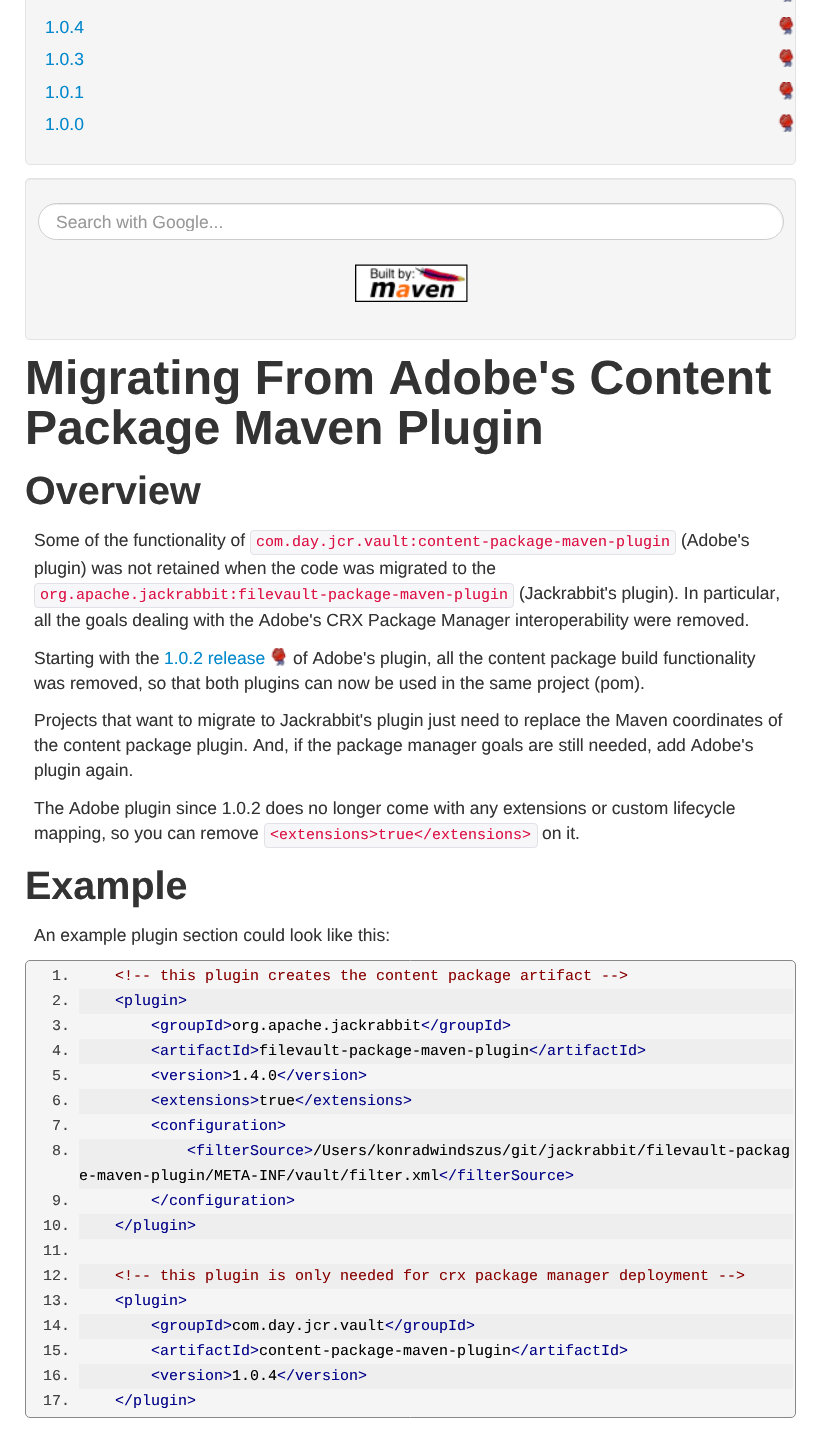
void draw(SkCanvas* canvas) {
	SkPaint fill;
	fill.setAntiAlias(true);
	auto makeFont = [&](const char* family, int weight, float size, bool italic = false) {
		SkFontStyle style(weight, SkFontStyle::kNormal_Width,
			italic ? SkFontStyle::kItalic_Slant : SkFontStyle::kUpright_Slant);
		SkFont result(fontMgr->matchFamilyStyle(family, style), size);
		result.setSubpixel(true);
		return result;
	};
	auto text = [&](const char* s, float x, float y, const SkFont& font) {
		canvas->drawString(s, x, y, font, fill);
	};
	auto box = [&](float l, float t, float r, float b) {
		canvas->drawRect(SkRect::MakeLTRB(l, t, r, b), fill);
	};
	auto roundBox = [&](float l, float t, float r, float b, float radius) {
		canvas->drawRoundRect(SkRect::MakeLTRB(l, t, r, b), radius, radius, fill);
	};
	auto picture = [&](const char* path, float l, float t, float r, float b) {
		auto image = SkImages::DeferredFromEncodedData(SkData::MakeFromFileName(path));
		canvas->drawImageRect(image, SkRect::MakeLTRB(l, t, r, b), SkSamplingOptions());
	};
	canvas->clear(0xFFFFFFFF);
	fill.setColor(0xFFF5F5F5);
	canvas->drawRoundRect(SkRect::MakeLTRB(25.5f, -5.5f, 795.5f, 164.5f), 4.5f, 4.5f, fill);
	fill.setStyle(SkPaint::kStroke_Style);
	fill.setStrokeWidth(1);
	fill.setColor(0xFFE3E3E3);
	canvas->drawRoundRect(SkRect::MakeLTRB(25.5f, -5.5f, 795.5f, 164.5f), 4.5f, 4.5f, fill);
	picture("image0.png", 782, 0, 793, 2);
	picture("image1.png", 778, 17, 794, 35);
	picture("image2.png", 778, 49, 794, 67);
	picture("image1.png", 778, 82, 794, 100);
	picture("image3.png", 778, 114, 794, 132);
	fill.setStyle(SkPaint::kFill_Style);
	fill.setColor(0xFFF5F5F5);
	roundBox(25, 178, 796, 340, 5);
	fill.setColor(0xFFE9E9E9);
	canvas->drawPath(SkPathBuilder().moveTo(30, 180).lineTo(791, 180).cubicTo(793, 180, 795, 182, 795, 184).lineTo(795, 183).cubicTo(795, 181, 793, 179, 791, 179).lineTo(30, 179).cubicTo(28, 179, 26, 181, 26, 183).lineTo(26, 184).cubicTo(26, 182, 28, 180, 30, 180).close().detach(), fill);
	fill.setStyle(SkPaint::kStroke_Style);
	fill.setColor(0xFFE3E3E3);
	canvas->drawRoundRect(SkRect::MakeLTRB(25.5f, 178.5f, 795.5f, 339.5f), 4.5f, 4.5f, fill);
	fill.setStyle(SkPaint::kFill_Style);
	fill.setColor(0xFFFFFFFF);
	roundBox(38, 203, 784, 240, 18.5f);
	fill.setColor(0xFFECECEC);
	canvas->drawPath(SkPathBuilder().moveTo(56, 205).lineTo(765, 205).cubicTo(779, 205, 785, 219, 781, 229).cubicTo(782, 227, 783, 224, 783, 222).cubicTo(783, 212, 775, 204, 766, 204).lineTo(56, 204).cubicTo(49, 204, 43, 208, 40, 215).cubicTo(43, 209, 48, 205, 56, 205).close().detach(), fill);
	fill.setStyle(SkPaint::kStroke_Style);
	fill.setColor(0xFFCCCCCC);
	canvas->drawRoundRect(SkRect::MakeLTRB(38.5f, 203.5f, 783.5f, 239.5f), 18, 18, fill);
	picture("image4.png", 355, 264, 468, 302);
	fill.setStyle(SkPaint::kFill_Style);
	fill.setColor(0xFFF7F7F9);
	canvas->drawRoundRect(SkRect::MakeLTRB(250.5f, 530.5f, 675.5f, 554.5f), 3.5f, 3.5f, fill);
	fill.setStyle(SkPaint::kStroke_Style);
	fill.setColor(0xFFE1E1E8);
	canvas->drawRoundRect(SkRect::MakeLTRB(250.5f, 530.5f, 675.5f, 554.5f), 3.5f, 3.5f, fill);
	fill.setStyle(SkPaint::kFill_Style);
	fill.setColor(0xFFF7F7F9);
	canvas->drawRoundRect(SkRect::MakeLTRB(34.5f, 583.5f, 513.5f, 607.5f), 3.5f, 3.5f, fill);
	fill.setStyle(SkPaint::kStroke_Style);
	fill.setColor(0xFFE1E1E8);
	canvas->drawRoundRect(SkRect::MakeLTRB(34.5f, 583.5f, 513.5f, 607.5f), 3.5f, 3.5f, fill);
	picture("image5.png", 271, 648, 287, 666);
	fill.setStyle(SkPaint::kFill_Style);
	fill.setColor(0xFFF7F7F9);
	canvas->drawRoundRect(SkRect::MakeLTRB(264.5f, 823.5f, 537.5f, 847.5f), 3.5f, 3.5f, fill);
	fill.setStyle(SkPaint::kStroke_Style);
	fill.setColor(0xFFE1E1E8);
	canvas->drawRoundRect(SkRect::MakeLTRB(264.5f, 823.5f, 537.5f, 847.5f), 3.5f, 3.5f, fill);
	fill.setStyle(SkPaint::kFill_Style);
	fill.setColor(0xFFF5F5F5);
	canvas->drawRoundRect(SkRect::MakeLTRB(25.5f, 960.5f, 795.5f, 1417.5f), 4.5f, 4.5f, fill);
	fill.setStyle(SkPaint::kStroke_Style);
	fill.setColor(0xFF888888);
	canvas->drawRoundRect(SkRect::MakeLTRB(25.5f, 960.5f, 795.5f, 1417.5f), 4.5f, 4.5f, fill);
	fill.setStyle(SkPaint::kFill_Style);
	fill.setColor(0xFFEEEEEE);
	box(79, 989, 793, 1014);
	box(79, 1039, 793, 1064);
	box(79, 1089, 793, 1114);
	box(79, 1139, 793, 1189);
	box(79, 1214, 793, 1239);
	box(79, 1264, 793, 1289);
	box(79, 1314, 793, 1339);
	box(79, 1364, 793, 1389);
	auto font1 = makeFont("Liberation Sans", 400, 17.5f);
	fill.setColor(0xFF0088CC);
	text("1.0.4", 45, 33, font1);
	text("1.0.3", 45, 65, font1);
	text("1.0.1", 45, 98, font1);
	text("1.0.0", 45, 130, font1);
	canvas->save();
	canvas->clipRect(SkRect::MakeLTRB(56, 211, 765, 231));
	fill.setColor(0xFF999999);
	text("Search with Google...", 56, 228, font1);
	canvas->restore();
	auto font2 = makeFont("Liberation Sans", 700, 48.1f);
	fill.setColor(0xFF333333);
	text("Migrating From Adobe's Content", 25, 394, font2);
	text("Package Maven Plugin", 25, 444, font2);
	auto font3 = makeFont("Liberation Sans", 700, 39.5f);
	text("Overview", 25, 504, font3);
	text("Some of the functionality of", 34, 546, font1);
	auto font4 = makeFont("Liberation Mono", 400, 15);
	fill.setColor(0xFFDD1144);
	text("com.day.jcr.vault:content-package-maven-plugin", 256, 546, font4);
	fill.setColor(0xFF333333);
	text("(Adobe's", 681, 546, font1);
	text("plugin) was not retained when the code was migrated to the", 34, 574, font1);
	fill.setColor(0xFFDD1144);
	text("org.apache.jackrabbit:filevault-package-maven-plugin", 40, 599, font4);
	fill.setColor(0xFF333333);
	text("(Jackrabbit's plugin). In particular,", 519, 599, font1);
	text("all the goals dealing with the Adobe's CRX Package Manager interoperability were removed.", 34, 626, font1);
	text("Starting with the", 34, 664, font1);
	fill.setColor(0xFF0088CC);
	text("1.0.2 release", 164, 664, font1);
	fill.setColor(0xFF333333);
	text("of Adobe's plugin, all the content package build functionality", 293, 664, font1);
	text("was removed, so that both plugins can now be used in the same project (pom).", 34, 689, font1);
	text("Projects that want to migrate to Jackrabbit's plugin just need to replace the Maven coordinates of", 34, 726, font1);
	text("the content package plugin. And, if the package manager goals are still needed, add Adobe's", 34, 751, font1);
	text("plugin again.", 34, 776, font1);
	text("The Adobe plugin since 1.0.2 does no longer come with any extensions or custom lifecycle", 34, 814, font1);
	text("mapping, so you can remove", 34, 839, font1);
	fill.setColor(0xFFDD1144);
	text("<extensions>true</extensions>", 270, 839, font4);
	fill.setColor(0xFF333333);
	text("on it.", 542, 839, font1);
	text("Example", 25, 899, font3);
	text("An example plugin section could look like this:", 34, 941, font1);
	fill.setColor(0xFF404040);
	text("1.", 52, 980, font4);
	fill.setColor(0xFF880000);
	text("<!-- this plugin creates the content package artifact -->", 115, 980, font4);
	fill.setColor(0xFF404040);
	text("2.", 52, 1005, font4);
	fill.setColor(0xFF000088);
	text("<plugin>", 115, 1005, font4);
	fill.setColor(0xFF404040);
	text("3.", 52, 1030, font4);
	fill.setColor(0xFF000088);
	text("<groupId>", 151, 1030, font4);
	fill.setColor(0xFF000000);
	text("org.apache.jackrabbit", 232, 1030, font4);
	fill.setColor(0xFF000088);
	text("</groupId>", 421, 1030, font4);
	fill.setColor(0xFF404040);
	text("4.", 52, 1055, font4);
	fill.setColor(0xFF000088);
	text("<artifactId>", 151, 1055, font4);
	fill.setColor(0xFF000000);
	text("filevault-package-maven-plugin", 259, 1055, font4);
	fill.setColor(0xFF000088);
	text("</artifactId>", 529, 1055, font4);
	fill.setColor(0xFF404040);
	text("5.", 52, 1080, font4);
	fill.setColor(0xFF000088);
	text("<version>", 151, 1080, font4);
	fill.setColor(0xFF000000);
	text("1.4.0", 232, 1080, font4);
	fill.setColor(0xFF000088);
	text("</version>", 277, 1080, font4);
	fill.setColor(0xFF404040);
	text("6.", 52, 1105, font4);
	fill.setColor(0xFF000088);
	text("<extensions>", 151, 1105, font4);
	fill.setColor(0xFF000000);
	text("true", 259, 1105, font4);
	fill.setColor(0xFF000088);
	text("</extensions>", 295, 1105, font4);
	fill.setColor(0xFF404040);
	text("7.", 52, 1130, font4);
	fill.setColor(0xFF000088);
	text("<configuration>", 151, 1130, font4);
	fill.setColor(0xFF404040);
	text("8.", 52, 1155, font4);
	fill.setColor(0xFF000088);
	text("<filterSource>", 187, 1155, font4);
	fill.setColor(0xFF000000);
	text("/Users/konradwindszus/git/jackrabbit/filevault-packag", 313, 1155, font4);
	text("e-maven-plugin/META-INF/vault/filter.xml", 79, 1180, font4);
	fill.setColor(0xFF000088);
	text("</filterSource>", 439, 1180, font4);
	fill.setColor(0xFF404040);
	text("9.", 52, 1205, font4);
	fill.setColor(0xFF000088);
	text("</configuration>", 151, 1205, font4);
	fill.setColor(0xFF404040);
	text("10.", 43, 1230, font4);
	fill.setColor(0xFF000088);
	text("</plugin>", 115, 1230, font4);
	fill.setColor(0xFF404040);
	text("11.", 43, 1255, font4);
	text("12.", 43, 1280, font4);
	fill.setColor(0xFF880000);
	text("<!-- this plugin is only needed for crx package manager deployment -->", 115, 1280, font4);
	fill.setColor(0xFF404040);
	text("13.", 43, 1305, font4);
	fill.setColor(0xFF000088);
	text("<plugin>", 115, 1305, font4);
	fill.setColor(0xFF404040);
	text("14.", 43, 1330, font4);
	fill.setColor(0xFF000088);
	text("<groupId>", 151, 1330, font4);
	fill.setColor(0xFF000000);
	text("com.day.jcr.vault", 232, 1330, font4);
	fill.setColor(0xFF000088);
	text("</groupId>", 385, 1330, font4);
	fill.setColor(0xFF404040);
	text("15.", 43, 1355, font4);
	fill.setColor(0xFF000088);
	text("<artifactId>", 151, 1355, font4);
	fill.setColor(0xFF000000);
	text("content-package-maven-plugin", 259, 1355, font4);
	fill.setColor(0xFF000088);
	text("</artifactId>", 511, 1355, font4);
	fill.setColor(0xFF404040);
	text("16.", 43, 1380, font4);
	fill.setColor(0xFF000088);
	text("<version>", 151, 1380, font4);
	fill.setColor(0xFF000000);
	text("1.0.4", 232, 1380, font4);
	fill.setColor(0xFF000088);
	text("</version>", 277, 1380, font4);
	fill.setColor(0xFF404040);
	text("17.", 43, 1405, font4);
	fill.setColor(0xFF000088);
	text("</plugin>", 115, 1405, font4);
}
